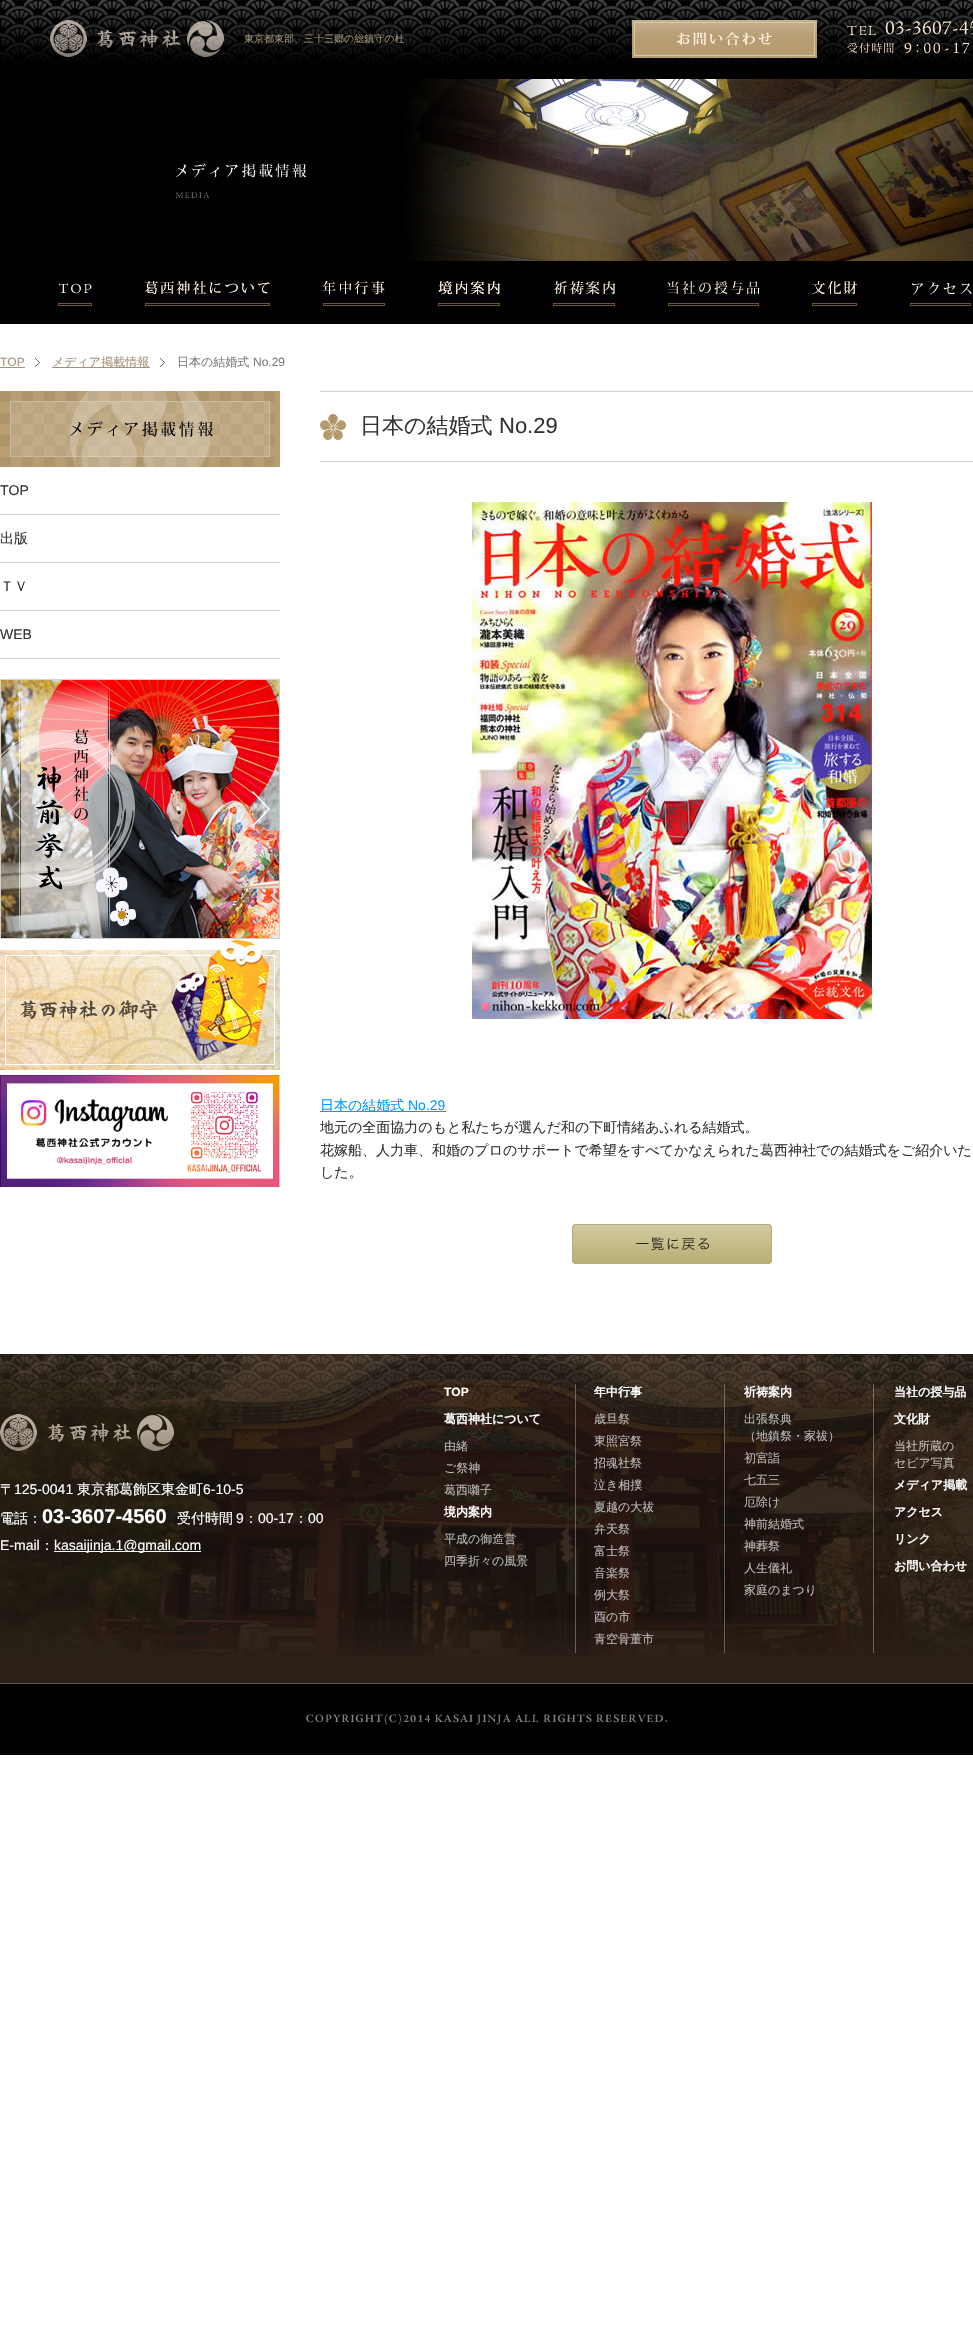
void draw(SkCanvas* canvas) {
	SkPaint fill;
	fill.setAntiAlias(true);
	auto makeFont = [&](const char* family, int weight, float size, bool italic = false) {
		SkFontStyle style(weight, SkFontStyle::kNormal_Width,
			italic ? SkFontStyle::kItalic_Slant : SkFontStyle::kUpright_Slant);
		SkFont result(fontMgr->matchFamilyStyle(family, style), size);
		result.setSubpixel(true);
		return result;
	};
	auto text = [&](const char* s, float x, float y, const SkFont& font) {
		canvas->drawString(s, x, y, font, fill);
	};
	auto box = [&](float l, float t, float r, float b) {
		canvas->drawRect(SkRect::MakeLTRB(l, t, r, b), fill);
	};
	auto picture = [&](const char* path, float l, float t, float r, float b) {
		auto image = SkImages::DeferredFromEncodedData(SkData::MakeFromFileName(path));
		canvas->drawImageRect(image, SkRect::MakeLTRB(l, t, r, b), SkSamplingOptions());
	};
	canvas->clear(0xFFFFFFFF);
	picture("image0.png", 0, 0, 973, 79);
	picture("image1.png", 50, 20, 224, 57);
	picture("image2.png", 632, 20, 817, 58);
	picture("image3.png", 847, 21, 973, 54);
	fill.setColor(0xFF000000);
	box(0, 79, 176, 261);
	picture("image4.png", 176, 79, 973, 261);
	box(0, 261, 973, 324);
	picture("image5.png", 58, 283, 92, 306);
	picture("image6.png", 144, 281, 270, 306);
	picture("image7.png", 322, 281, 385, 306);
	picture("image8.png", 438, 281, 500, 306);
	picture("image9.png", 553, 281, 615, 306);
	picture("image10.png", 667, 281, 760, 306);
	picture("image11.png", 812, 281, 857, 306);
	picture("image12.png", 910, 282, 972, 306);
	fill.setColor(0xFFA1937A);
	box(0, 367, 25, 368);
	picture("image13.png", 35, 358, 40, 367);
	box(52, 367, 150, 368);
	picture("image13.png", 160, 358, 165, 367);
	picture("image14.png", 0, 391, 280, 467);
	fill.setColor(0xFFD5CFCC);
	box(0, 514, 280, 515);
	box(0, 562, 280, 563);
	box(0, 610, 280, 611);
	box(0, 658, 280, 659);
	picture("image15.png", 0, 679, 280, 939);
	picture("image16.png", 10, 791, 28, 827);
	picture("image17.png", 252, 791, 270, 827);
	fill.setColor(0xFFBE8D1C);
	canvas->drawCircle(122, 915, 4, fill);
	fill.setColor(0x33000000);
	canvas->drawCircle(140, 915, 4, fill);
	canvas->drawCircle(158, 915, 4, fill);
	picture("image18.png", 0, 939, 280, 1070);
	picture("image19.png", 0, 1075, 280, 1187);
	picture("image20.png", 320, 414, 346, 440);
	fill.setColor(0xFFD5CFCC);
	box(320, 391, 973, 392);
	box(320, 461, 973, 462);
	picture("image21.png", 472, 502, 872, 1019);
	fill.setColor(0xFF0099FF);
	box(320, 1111, 446, 1112);
	picture("image22.png", 572, 1224, 772, 1264);
	fill.setColor(0xFF2B2017);
	box(0, 1657, 973, 1683);
	picture("image23.png", 0, 1354, 973, 1657);
	picture("image24.png", 0, 1355, 973, 1407);
	picture("image25.png", 0, 1414, 174, 1451);
	fill.setColor(0xFFFFFFFF);
	box(54, 1551, 201, 1552);
	picture("image26.png", 575, 1384, 874, 1653);
	fill.setColor(0xFF000000);
	box(0, 1684, 973, 1755);
	fill.setColor(0xFF5C5C5C);
	box(0, 1683, 973, 1684);
	picture("image27.png", 306, 1714, 668, 1725);
	auto font1 = makeFont("WenQuanYi Zen Hei", 500, 10);
	fill.setColor(0xFFA1937A);
	text("東京都東部、三十三郷の総鎮守の杜", 244, 42, font1);
	auto font2 = makeFont("Liberation Sans", 400, 12);
	text("TOP", 0, 366, font2);
	auto font3 = makeFont("WenQuanYi Zen Hei", 500, 12);
	text("メディア掲載情報", 52, 366, font3);
	fill.setColor(0xFF7C7C7C);
	text("日本の結婚式", 177, 366, font3);
	text("No.29", 253, 366, font2);
	auto font4 = makeFont("Liberation Sans", 400, 14);
	fill.setColor(0xFF333333);
	text("TOP", 0, 495, font4);
	auto font5 = makeFont("WenQuanYi Zen Hei", 500, 14);
	text("出版", 0, 543, font5);
	text("ＴＶ", 0, 591, font5);
	text("WEB", 0, 639, font4);
	auto font6 = makeFont("WenQuanYi Zen Hei", 500, 22);
	text("日本の結婚式", 360, 433, font6);
	auto font7 = makeFont("Liberation Sans", 400, 22);
	text("No.29", 499, 433, font7);
	fill.setColor(0xFF0099FF);
	text("日本の結婚式", 320, 1110, font5);
	text("No.29", 408, 1110, font4);
	fill.setColor(0xFF333333);
	text("地元の全面協力のもと私たちが選んだ和の下町情緒あふれる結婚式。", 320, 1132, font5);
	text("花嫁船、人力車、和婚のプロのサポートで希望をすべてかなえられた葛西神社での結婚式をご紹介いた", 320, 1155, font5);
	text("した。", 320, 1177, font5);
	fill.setColor(0xFFFFFFFF);
	text("〒", 0, 1494, font5);
	text("125-0041", 14, 1494, font4);
	text("東京都葛飾区東金町", 77, 1494, font5);
	text("6-10-5", 203, 1494, font4);
	text("電話：", 0, 1523, font5);
	auto font8 = makeFont("Liberation Sans", 700, 20);
	text("03-3607-4560", 42, 1523, font8);
	text("受付時間", 177, 1523, font5);
	text("9", 236, 1523, font4);
	text("：", 244, 1523, font5);
	text("00-17", 258, 1523, font4);
	text("：", 294, 1523, font5);
	text("00", 308, 1523, font4);
	text("E-mail", 0, 1550, font4);
	text("：", 40, 1550, font5);
	text("kasaijinja.1@gmail.com", 54, 1550, font4);
	auto font9 = makeFont("Liberation Sans", 700, 12);
	text("TOP", 444, 1396, font9);
	auto font10 = makeFont("WenQuanYi Zen Hei", 700, 12);
	text("葛西神社について", 444, 1423, font10);
	fill.setColor(0xFFBCBAB8);
	text("由緒", 444, 1450, font3);
	text("ご祭神", 444, 1472, font3);
	text("葛西囃子", 444, 1494, font3);
	fill.setColor(0xFFFFFFFF);
	text("境内案内", 444, 1516, font10);
	fill.setColor(0xFFBCBAB8);
	text("平成の御造営", 444, 1543, font3);
	text("四季折々の風景", 444, 1565, font3);
	fill.setColor(0xFFFFFFFF);
	text("年中行事", 594, 1396, font10);
	fill.setColor(0xFFBCBAB8);
	text("歳旦祭", 594, 1423, font3);
	text("東照宮祭", 594, 1445, font3);
	text("招魂社祭", 594, 1467, font3);
	text("泣き相撲", 594, 1489, font3);
	text("夏越の大祓", 594, 1511, font3);
	text("弁天祭", 594, 1533, font3);
	text("富士祭", 594, 1555, font3);
	text("音楽祭", 594, 1577, font3);
	text("例大祭", 594, 1599, font3);
	text("酉の市", 594, 1621, font3);
	text("青空骨董市", 594, 1643, font3);
	fill.setColor(0xFFFFFFFF);
	text("祈祷案内", 744, 1396, font10);
	fill.setColor(0xFFBCBAB8);
	text("出張祭典", 744, 1423, font3);
	text("（地鎮祭・家祓）", 744, 1440, font3);
	text("初宮詣", 744, 1462, font3);
	text("七五三", 744, 1484, font3);
	text("厄除け", 744, 1506, font3);
	text("神前結婚式", 744, 1528, font3);
	text("神葬祭", 744, 1550, font3);
	text("人生儀礼", 744, 1572, font3);
	text("家庭のまつり", 744, 1594, font3);
	fill.setColor(0xFFFFFFFF);
	text("当社の授与品", 894, 1396, font10);
	text("文化財", 894, 1423, font10);
	fill.setColor(0xFFC2BEBB);
	text("当社所蔵の", 894, 1450, font3);
	fill.setColor(0xFFBCBAB8);
	text("セピア写真", 894, 1467, font3);
	fill.setColor(0xFFFFFFFF);
	text("メディア掲載", 894, 1489, font10);
	text("アクセス", 894, 1516, font10);
	text("リンク", 894, 1543, font10);
	text("お問い合わせ", 894, 1570, font10);
}
